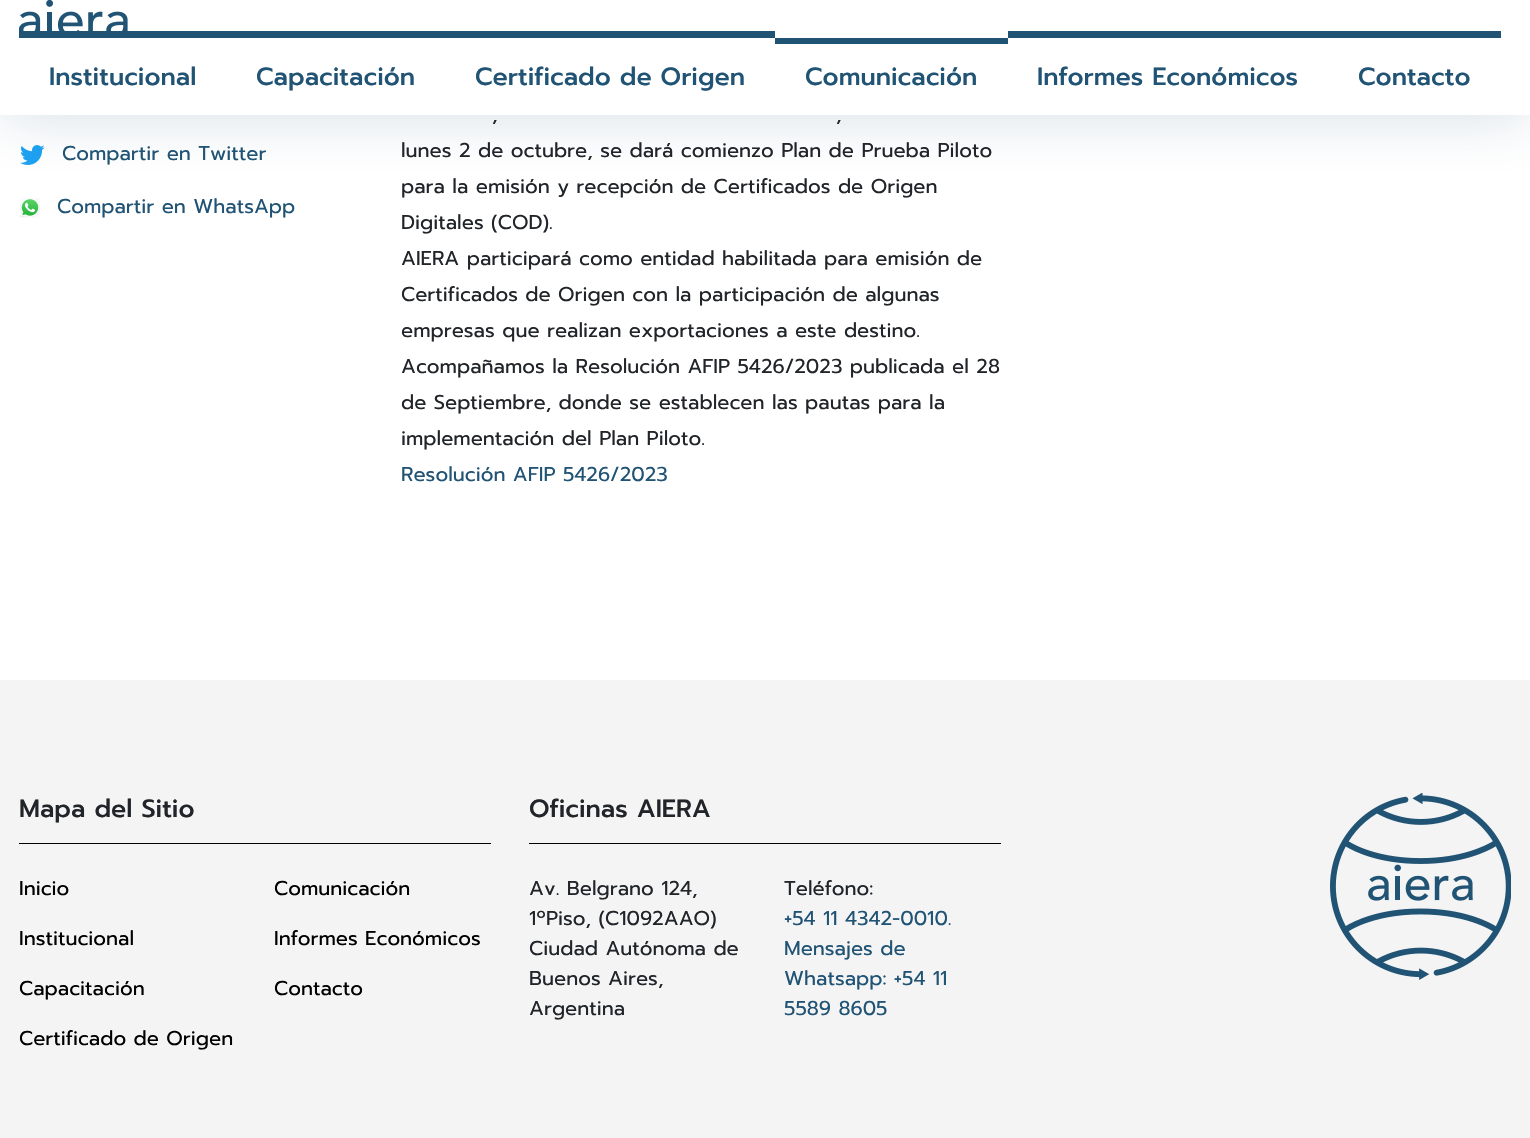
void draw(SkCanvas* canvas) {
	SkPaint fill;
	fill.setAntiAlias(true);
	auto makeFont = [&](const char* family, int weight, float size, bool italic = false) {
		SkFontStyle style(weight, SkFontStyle::kNormal_Width,
			italic ? SkFontStyle::kItalic_Slant : SkFontStyle::kUpright_Slant);
		SkFont result(fontMgr->matchFamilyStyle(family, style), size);
		result.setSubpixel(true);
		return result;
	};
	auto text = [&](const char* s, float x, float y, const SkFont& font) {
		canvas->drawString(s, x, y, font, fill);
	};
	auto box = [&](float l, float t, float r, float b) {
		canvas->drawRect(SkRect::MakeLTRB(l, t, r, b), fill);
	};
	auto picture = [&](const char* path, float l, float t, float r, float b) {
		auto image = SkImages::DeferredFromEncodedData(SkData::MakeFromFileName(path));
		canvas->drawImageRect(image, SkRect::MakeLTRB(l, t, r, b), SkSamplingOptions());
	};
	canvas->clear(0xFFFFFFFF);
	picture("image1.png", 20, 145, 45, 165);
	picture("image2.png", 20, 198, 40, 218);
	fill.setColor(0x33205374);
	fill.setMaskFilter(SkMaskFilter::MakeBlur(kNormal_SkBlurStyle, 31));
	canvas->drawRect(SkRect::MakeLTRB(0, 0, 1530, 115), fill);
	fill.setMaskFilter(nullptr);
	fill.setColor(0xFFFFFFFF);
	box(0, 0, 1530, 115);
	picture("image0.png", 19, 0, 128, 31);
	fill.setColor(0xFF205374);
	box(19, 31, 775, 38);
	box(775, 38, 1008, 44);
	box(1008, 31, 1501, 38);
	fill.setColor(0xFFF4F4F4);
	box(0, 680, 1530, 1138);
	fill.setColor(0xFF000000);
	box(19, 843, 491, 844);
	box(529, 843, 1001, 844);
	picture("image3.png", 1330, 793, 1511, 980);
	auto font1 = makeFont("Prompt", 500, 25);
	fill.setColor(0xFF205374);
	text("Institucional", 49, 85, font1);
	text("Capacitación", 256, 85, font1);
	text("Certificado de Origen", 475, 85, font1);
	text("Comunicación", 805, 85, font1);
	text("Informes Económicos", 1037, 85, font1);
	text("Contacto", 1358, 85, font1);
	auto font2 = makeFont("Prompt", 400, 20);
	text("Compartir en Twitter", 62, 160, font2);
	text("Compartir en WhatsApp", 57, 213, font2);
	fill.setColor(0xFF212529);
	text(",", 492, 121, font2);
	text(",", 836, 121, font2);
	text("lunes 2 de octubre, se dará comienzo Plan de Prueba Piloto", 401, 157, font2);
	text("para la emisión y recepción de Certificados de Origen", 401, 193, font2);
	text("Digitales (COD).", 401, 229, font2);
	text("AIERA participará como entidad habilitada para emisión de", 401, 265, font2);
	text("Certificados de Origen con la participación de algunas", 401, 301, font2);
	text("empresas que realizan exportaciones a este destino.", 401, 337, font2);
	text("Acompañamos la Resolución AFIP 5426/2023 publicada el 28", 401, 373, font2);
	text("de Septiembre, donde se establecen las pautas para la", 401, 409, font2);
	text("implementación del Plan Piloto.", 401, 445, font2);
	fill.setColor(0xFF205374);
	text("Resolución AFIP 5426/2023", 401, 481, font2);
	fill.setColor(0xFF212529);
	text("Mapa del Sitio", 19, 817, font1);
	fill.setColor(0xFF000000);
	text("Inicio", 19, 895, font2);
	text("Institucional", 19, 945, font2);
	text("Capacitación", 19, 995, font2);
	text("Certificado de Origen", 19, 1045, font2);
	text("Comunicación", 274, 895, font2);
	text("Informes Económicos", 274, 945, font2);
	text("Contacto", 274, 995, font2);
	fill.setColor(0xFF212529);
	text("Oficinas AIERA", 529, 817, font1);
	text("Av. Belgrano 124,", 529, 895, font2);
	text("1ºPiso, (C1092AAO)", 529, 925, font2);
	text("Ciudad Autónoma de", 529, 955, font2);
	text("Buenos Aires,", 529, 985, font2);
	text("Argentina", 529, 1015, font2);
	text("Teléfono:", 784, 895, font2);
	fill.setColor(0xFF205374);
	text("+54 11 4342-0010.", 784, 925, font2);
	text("Mensajes de", 784, 955, font2);
	text("Whatsapp: +54 11", 784, 985, font2);
	text("5589 8605", 784, 1015, font2);
}
